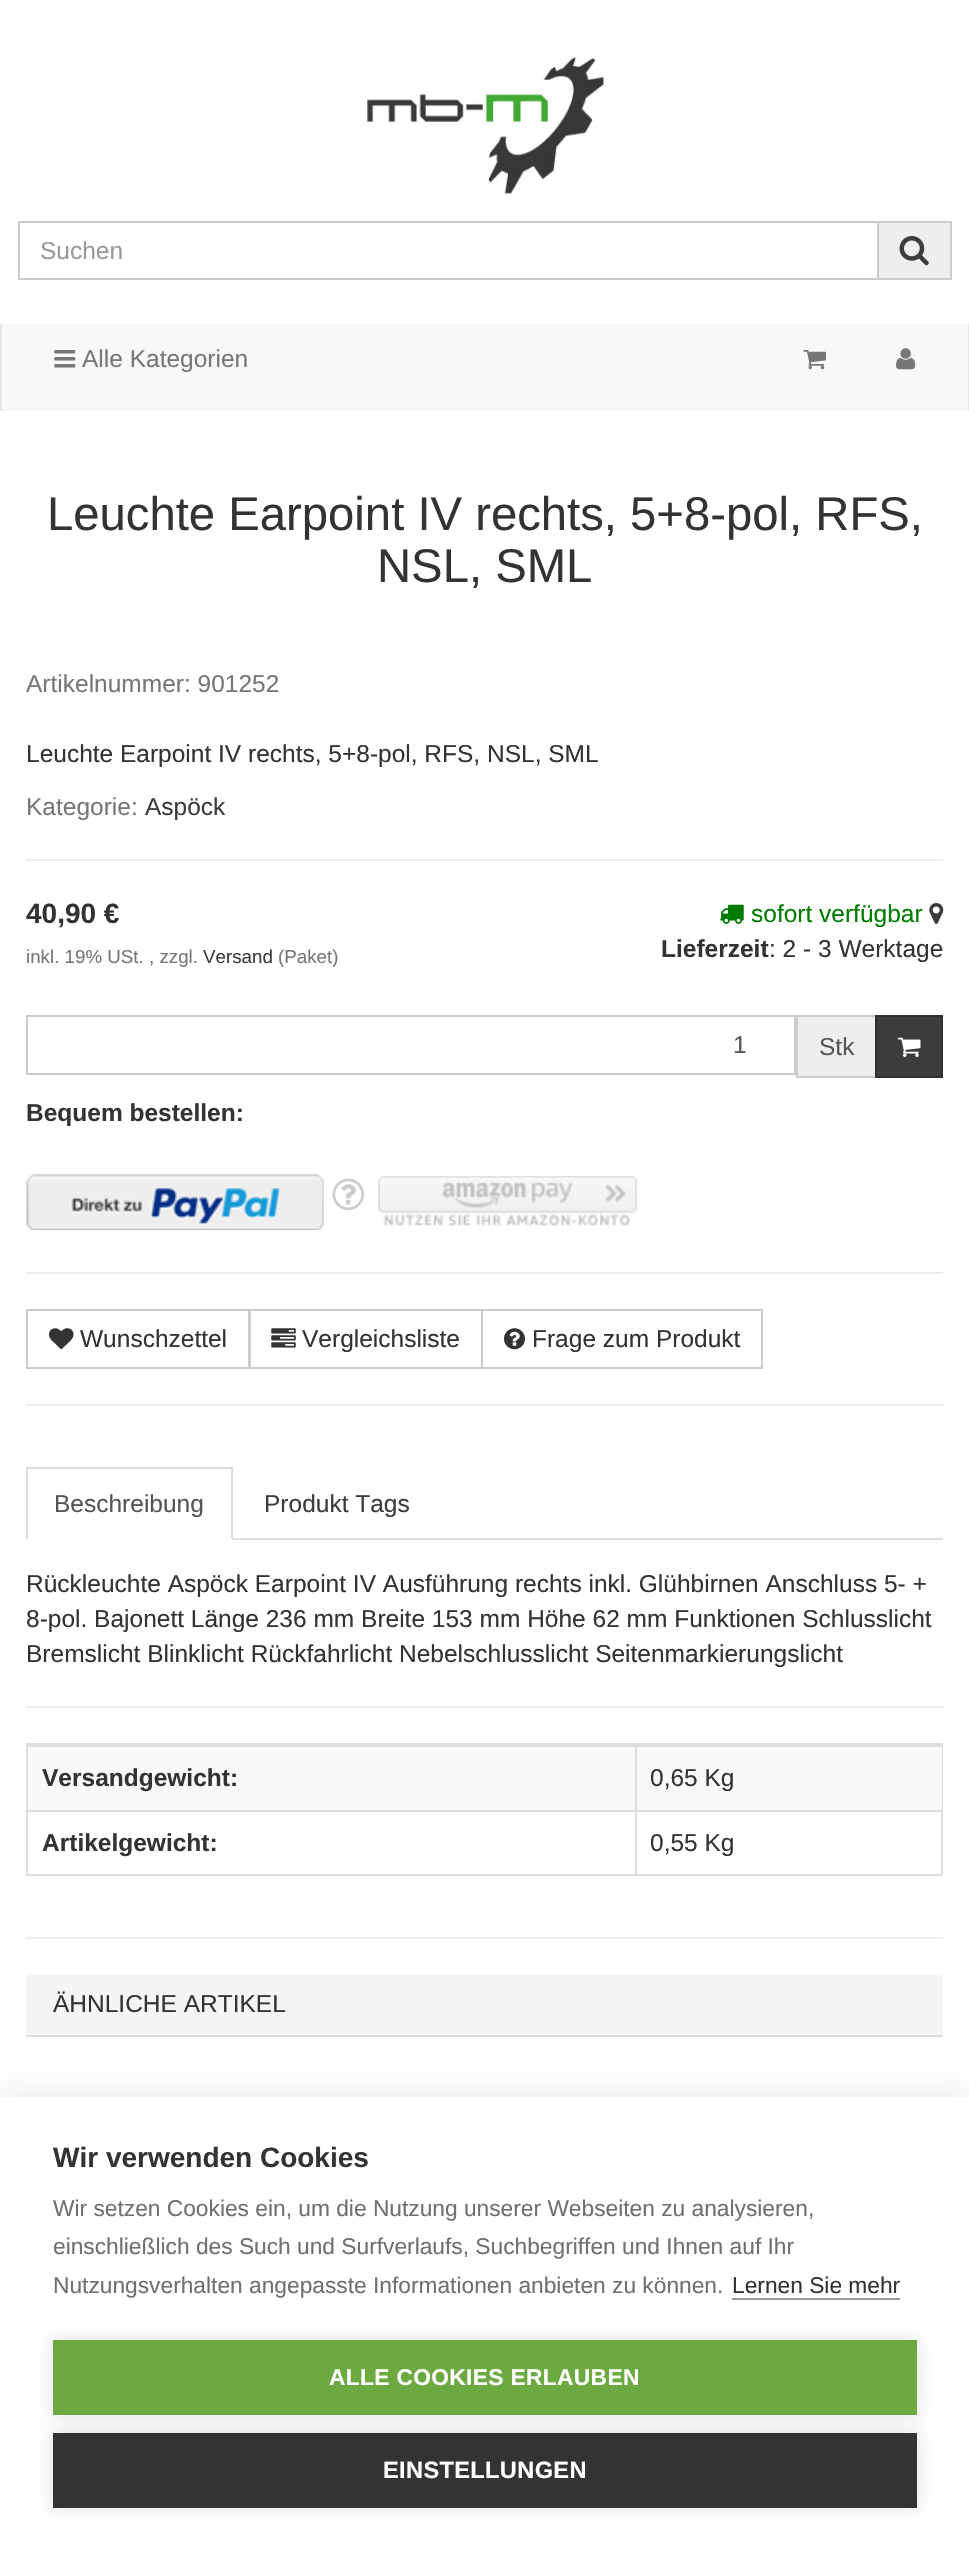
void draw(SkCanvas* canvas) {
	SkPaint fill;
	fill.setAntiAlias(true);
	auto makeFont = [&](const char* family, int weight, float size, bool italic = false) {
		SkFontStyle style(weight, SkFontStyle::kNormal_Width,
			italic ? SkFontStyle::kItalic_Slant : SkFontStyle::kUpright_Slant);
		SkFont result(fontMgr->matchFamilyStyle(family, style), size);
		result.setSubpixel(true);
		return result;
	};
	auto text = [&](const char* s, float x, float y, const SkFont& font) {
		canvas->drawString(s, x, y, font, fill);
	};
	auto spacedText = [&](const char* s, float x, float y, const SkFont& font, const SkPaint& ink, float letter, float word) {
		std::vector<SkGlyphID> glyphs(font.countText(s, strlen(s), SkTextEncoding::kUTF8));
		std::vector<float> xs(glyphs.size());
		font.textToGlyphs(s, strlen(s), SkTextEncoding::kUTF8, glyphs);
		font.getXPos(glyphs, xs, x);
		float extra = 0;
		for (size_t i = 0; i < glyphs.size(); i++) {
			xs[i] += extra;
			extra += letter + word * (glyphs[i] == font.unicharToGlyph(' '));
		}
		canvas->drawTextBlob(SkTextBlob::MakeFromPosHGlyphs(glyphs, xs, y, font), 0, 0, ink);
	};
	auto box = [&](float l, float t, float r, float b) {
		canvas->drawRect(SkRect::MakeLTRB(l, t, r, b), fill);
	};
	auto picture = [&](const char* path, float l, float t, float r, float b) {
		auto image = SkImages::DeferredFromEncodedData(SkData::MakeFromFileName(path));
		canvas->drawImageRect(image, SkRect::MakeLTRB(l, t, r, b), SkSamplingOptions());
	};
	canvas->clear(0xFFFFFFFF);
	picture("image0.png", 367, 57, 604, 194);
	fill.setStyle(SkPaint::kStroke_Style);
	fill.setStrokeWidth(2);
	fill.setColor(0xFFCCCCCC);
	canvas->drawRect(SkRect::MakeLTRB(19, 222, 878, 279), fill);
	fill.setStyle(SkPaint::kFill_Style);
	fill.setColor(0xFFEEEEEE);
	box(879, 223, 950, 278);
	fill.setColor(0xFFCCCCCC);
	box(879, 221, 952, 223);
	box(950, 221, 952, 280);
	box(879, 278, 952, 280);
	picture("image1.png", 899, 236, 929, 266);
	fill.setColor(0xFFF8F8F8);
	box(2, 324, 968, 411);
	fill.setColor(0xFFE7E7E7);
	box(968, 324, 969, 411);
	box(0, 324, 2, 411);
	picture("image2.png", 54, 350, 76, 368);
	picture("image3.png", 803, 350, 826, 370);
	picture("image4.png", 896, 348, 916, 370);
	fill.setColor(0xFFEEEEEE);
	box(26, 859, 943, 861);
	picture("image5.png", 720, 904, 744, 924);
	picture("image6.png", 929, 903, 944, 924);
	fill.setStyle(SkPaint::kStroke_Style);
	fill.setColor(0xFFCCCCCC);
	canvas->drawRect(SkRect::MakeLTRB(27, 1016, 795, 1074), fill);
	fill.setStyle(SkPaint::kFill_Style);
	fill.setColor(0xFFEEEEEE);
	canvas->drawRect(SkRect::MakeLTRB(797, 1016, 876, 1077), fill);
	fill.setStyle(SkPaint::kStroke_Style);
	fill.setColor(0xFFCCCCCC);
	canvas->drawRect(SkRect::MakeLTRB(797, 1016, 876, 1077), fill);
	fill.setStyle(SkPaint::kFill_Style);
	fill.setColor(0xFF3C3C3C);
	canvas->drawRect(SkRect::MakeLTRB(876, 1016, 942, 1077), fill);
	fill.setStyle(SkPaint::kStroke_Style);
	fill.setColor(0xFF2F2F2F);
	canvas->drawRect(SkRect::MakeLTRB(876, 1016, 942, 1077), fill);
	picture("image7.png", 897, 1037, 921, 1057);
	picture("image8.png", 26, 1174, 324, 1231);
	picture("image9.png", 332, 1178, 364, 1211);
	picture("image10.png", 378, 1176, 637, 1226);
	fill.setStyle(SkPaint::kFill_Style);
	fill.setColor(0xFFEEEEEE);
	box(26, 1272, 943, 1274);
	fill.setStyle(SkPaint::kStroke_Style);
	fill.setColor(0xFFCCCCCC);
	canvas->drawRect(SkRect::MakeLTRB(27, 1310, 249, 1368), fill);
	picture("image11.png", 49, 1328, 74, 1350);
	canvas->drawRect(SkRect::MakeLTRB(250, 1310, 482, 1368), fill);
	picture("image12.png", 271, 1328, 296, 1348);
	canvas->drawRect(SkRect::MakeLTRB(482, 1310, 762, 1368), fill);
	picture("image13.png", 504, 1328, 525, 1350);
	fill.setStyle(SkPaint::kFill_Style);
	fill.setColor(0xFFEEEEEE);
	box(26, 1404, 943, 1406);
	fill.setColor(0xFFDDDDDD);
	box(233, 1538, 943, 1540);
	box(26, 1467, 233, 1469);
	canvas->drawPath(SkPathBuilder().moveTo(233, 1466).lineTo(233, 1540).lineTo(231, 1538).lineTo(231, 1468).close().detach(), fill);
	canvas->drawPath(SkPathBuilder().moveTo(26, 1540).lineTo(26, 1466).lineTo(28, 1468).lineTo(28, 1538).close().detach(), fill);
	fill.setColor(0xFFEEEEEE);
	box(26, 1706, 943, 1708);
	fill.setStyle(SkPaint::kStroke_Style);
	fill.setColor(0xFFDDDDDD);
	canvas->drawRect(SkRect::MakeLTRB(27, 1744, 942, 1875), fill);
	fill.setStyle(SkPaint::kFill_Style);
	fill.setColor(0xFFF9F9F9);
	box(28, 1747, 942, 1810);
	fill.setColor(0xFFDDDDDD);
	box(635, 1745, 942, 1747);
	box(635, 1810, 942, 1812);
	box(635, 1810, 637, 1874);
	box(28, 1810, 637, 1812);
	box(635, 1745, 637, 1811);
	box(28, 1745, 637, 1747);
	fill.setColor(0xFFEEEEEE);
	box(26, 1937, 943, 1939);
	fill.setColor(0xFFF5F5F5);
	box(26, 1974, 943, 2035);
	fill.setColor(0xFFDDDDDD);
	box(26, 2035, 943, 2037);
	fill.setColor(0x1A000000);
	fill.setMaskFilter(SkMaskFilter::MakeBlur(kNormal_SkBlurStyle, 17.5f));
	canvas->drawRect(SkRect::MakeLTRB(0, 2097, 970, 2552), fill);
	fill.setMaskFilter(nullptr);
	fill.setColor(0xFFFFFFFF);
	box(0, 2097, 969, 2551);
	fill.setColor(0xFF999999);
	box(732, 2298, 900, 2300);
	fill.setColor(0x1F000000);
	fill.setMaskFilter(SkMaskFilter::MakeBlur(kNormal_SkBlurStyle, 9));
	canvas->drawRect(SkRect::MakeLTRB(53, 2340, 917, 2415), fill);
	fill.setMaskFilter(nullptr);
	fill.setColor(0xFF6DA941);
	box(53, 2340, 917, 2415);
	fill.setColor(0x1F000000);
	fill.setMaskFilter(SkMaskFilter::MakeBlur(kNormal_SkBlurStyle, 9));
	canvas->drawRect(SkRect::MakeLTRB(53, 2433, 917, 2508), fill);
	fill.setMaskFilter(nullptr);
	fill.setColor(0xFF333333);
	box(53, 2433, 917, 2508);
	auto font1 = makeFont("Liberation Sans", 400, 24.5f);
	fill.setColor(0xFF999999);
	text("Suchen", 40, 259, font1);
	fill.setColor(0xFF777777);
	text("Alle Kategorien", 82, 367, font1);
	auto font2 = makeFont("Liberation Sans", 400, 47.25f);
	fill.setColor(0xFF333333);
	text("Leuchte Earpoint IV rechts, 5+8-pol, RFS,", 47, 530, font2);
	text("NSL, SML", 377, 582, font2);
	fill.setColor(0xFF777777);
	text("Artikelnummer: 901252", 26, 692, font1);
	fill.setColor(0xFF333333);
	text("Leuchte Earpoint IV rechts, 5+8-pol, RFS, NSL, SML", 26, 762, font1);
	fill.setColor(0xFF777777);
	text("Kategorie:", 26, 815, font1);
	fill.setColor(0xFF3C3C3C);
	text("Aspöck", 145, 815, font1);
	auto font3 = makeFont("Liberation Sans", 700, 28);
	fill.setColor(0xFF333333);
	text("40,90 €", 26, 923, font3);
	auto font4 = makeFont("Liberation Sans", 400, 18.75f);
	fill.setColor(0xFF777777);
	text("inkl. 19% USt. , zzgl.", 26, 963, font4);
	fill.setColor(0xFF3C3C3C);
	text("Versand", 203, 963, font4);
	fill.setColor(0xFF777777);
	text("(Paket)", 278, 963, font4);
	fill.setColor(0xFF007C00);
	text("sofort verfügbar", 751, 922, font1);
	auto font5 = makeFont("Liberation Sans", 700, 24.5f);
	fill.setColor(0xFF333333);
	text("Lieferzeit", 661, 957, font5);
	text(": 2 - 3 Werktage", 769, 957, font1);
	fill.setColor(0xFF555555);
	text("1", 733, 1053, font1);
	text("Stk", 819, 1055, font1);
	fill.setColor(0xFF333333);
	text("Bequem bestellen:", 26, 1121, font5);
	text("Wunschzettel", 80, 1347, font1);
	text("Vergleichsliste", 302, 1347, font1);
	text("Frage zum Produkt", 532, 1347, font1);
	fill.setColor(0xFF555555);
	text("Beschreibung", 54, 1512, font1);
	fill.setColor(0xFF3C3C3C);
	text("Produkt Tags", 264, 1512, font1);
	fill.setColor(0xFF333333);
	text("Rückleuchte Aspöck Earpoint IV Ausführung rechts inkl. Glühbirnen Anschluss 5- +", 26, 1592, font1);
	text("8-pol. Bajonett Länge 236 mm Breite 153 mm Höhe 62 mm Funktionen Schlusslicht", 26, 1627, font1);
	text("Bremslicht Blinklicht Rückfahrlicht Nebelschlusslicht Seitenmarkierungslicht", 26, 1662, font1);
	text("Versandgewicht:", 42, 1786, font5);
	text("0,65 Kg", 650, 1786, font1);
	text("Artikelgewicht:", 42, 1851, font5);
	text("0,55 Kg", 650, 1851, font1);
	text("ÄHNLICHE ARTIKEL", 53, 2012, font1);
	text("Wir verwenden Cookies", 53, 2167, font3);
	auto font6 = makeFont("Liberation Sans", 400, 22.75f);
	fill.setColor(0xFF707070);
	text("Wir setzen Cookies ein, um die Nutzung unserer Webseiten zu analysieren,", 53, 2216, font6);
	text("einschließlich des Such und Surfverlaufs, Suchbegriffen und Ihnen auf Ihr", 53, 2254, font6);
	text("Nutzungsverhalten angepasste Informationen anbieten zu können.", 53, 2293, font6);
	fill.setColor(0xFF333333);
	text("Lernen Sie mehr", 732, 2293, font6);
	auto font7 = makeFont("Liberation Sans", 700, 22.75f);
	fill.setColor(0xFFFFFFFF);
	spacedText("ALLE COOKIES ERLAUBEN", 329, 2385, font7, fill, 0.35f, 0);
	auto font8 = makeFont("Liberation Sans", 700, 23.6f);
	spacedText("EINSTELLUNGEN", 383, 2478, font8, fill, 0.35f, 0);
}
